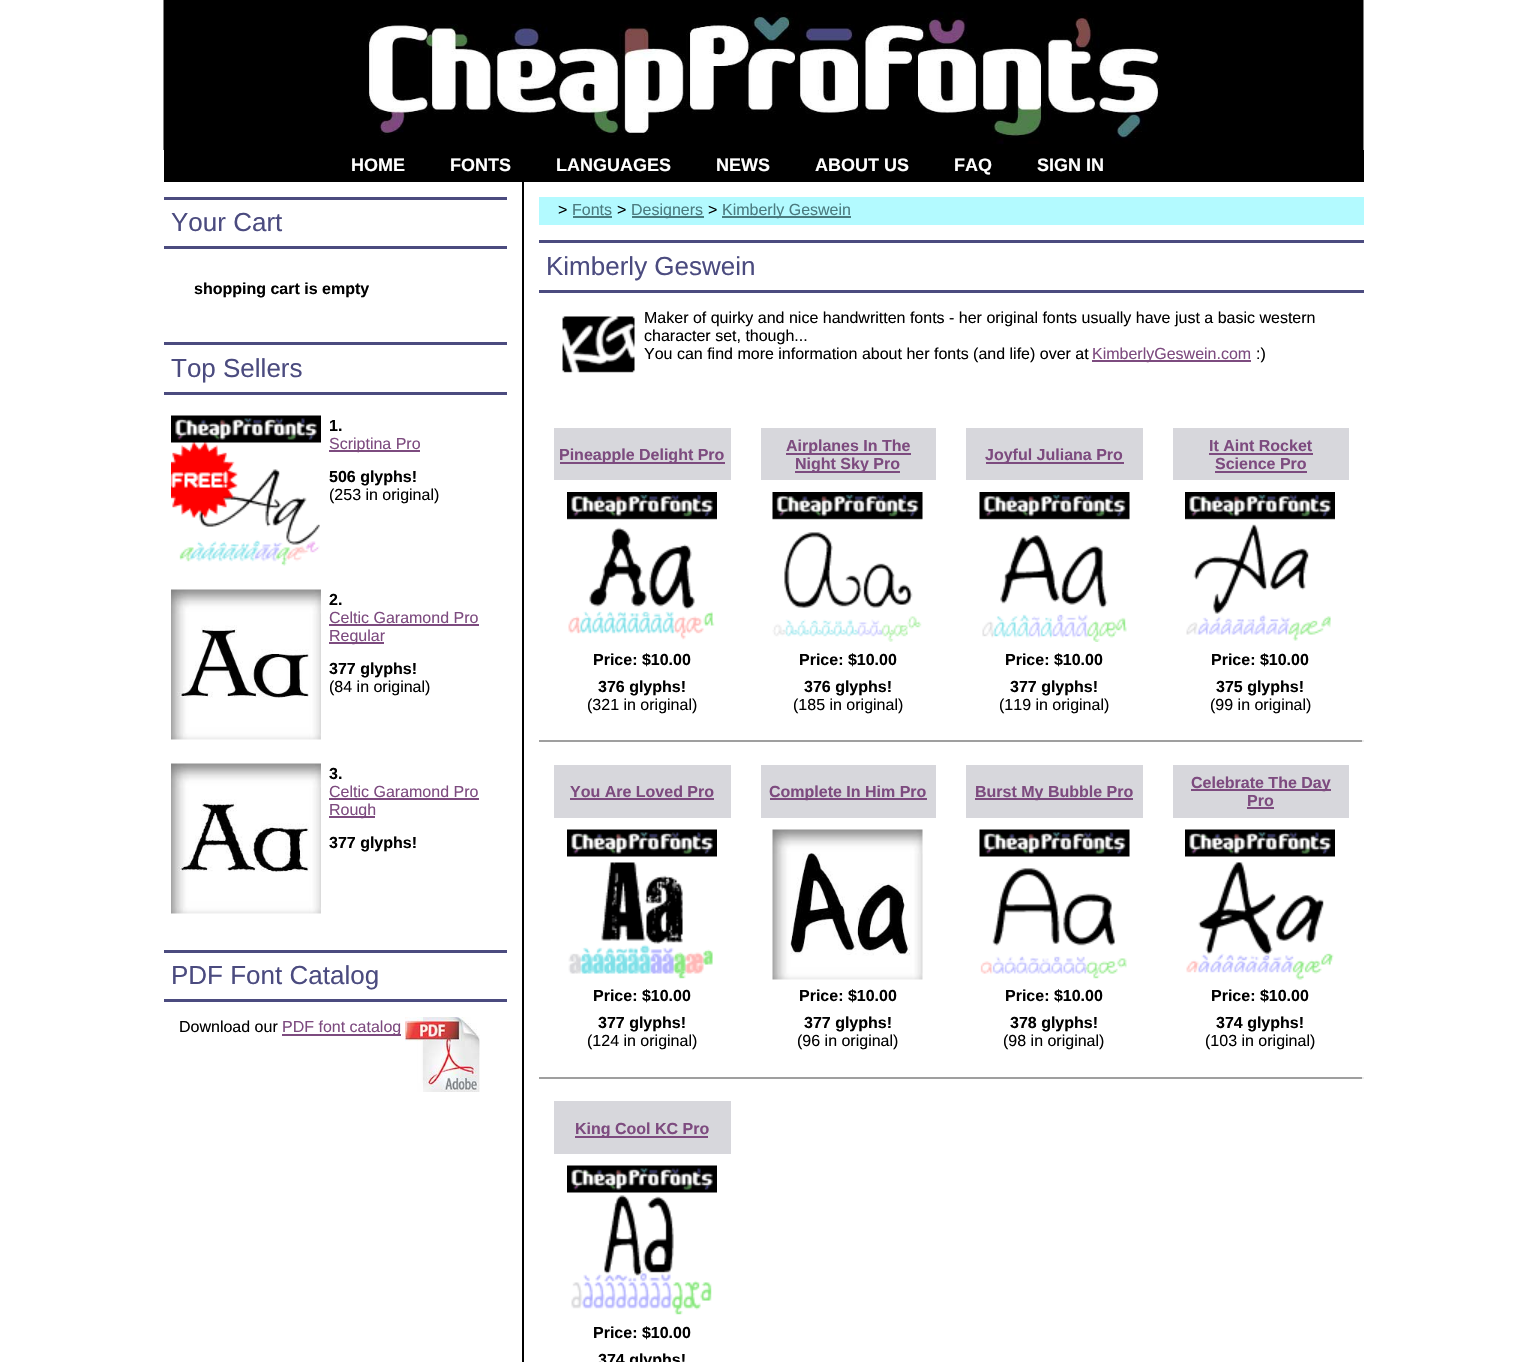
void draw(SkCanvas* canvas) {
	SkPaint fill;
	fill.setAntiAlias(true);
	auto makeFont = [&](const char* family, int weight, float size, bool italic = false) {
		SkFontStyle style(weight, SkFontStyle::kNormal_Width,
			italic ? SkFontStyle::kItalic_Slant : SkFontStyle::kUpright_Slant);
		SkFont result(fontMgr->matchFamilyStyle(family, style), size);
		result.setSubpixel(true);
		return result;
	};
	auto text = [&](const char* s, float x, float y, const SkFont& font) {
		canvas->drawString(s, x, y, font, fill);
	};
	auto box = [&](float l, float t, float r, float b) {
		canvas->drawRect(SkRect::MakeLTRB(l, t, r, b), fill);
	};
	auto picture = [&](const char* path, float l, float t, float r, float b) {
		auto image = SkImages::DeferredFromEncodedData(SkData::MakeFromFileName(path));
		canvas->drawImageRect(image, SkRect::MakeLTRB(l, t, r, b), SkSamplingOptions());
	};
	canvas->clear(0xFFFFFFFF);
	picture("image0.png", 163, 0, 1364, 150);
	fill.setColor(0xFF000000);
	box(164, 150, 1364, 182);
	box(522, 182, 524, 1362);
	fill.setColor(0xFF4B4B7F);
	box(164, 197, 507, 200);
	box(164, 246, 507, 249);
	box(164, 342, 507, 345);
	box(164, 392, 507, 395);
	picture("image1.png", 171, 415, 321, 566);
	fill.setColor(0xFF7D4B7F);
	box(329, 450, 420, 452);
	picture("image2.png", 171, 589, 321, 740);
	box(329, 624, 479, 626);
	box(329, 642, 384, 644);
	picture("image3.png", 171, 763, 321, 914);
	box(329, 798, 479, 800);
	box(329, 816, 375, 818);
	fill.setColor(0xFF4B4B7F);
	box(164, 950, 507, 953);
	box(164, 999, 507, 1002);
	fill.setColor(0xFF7D4B7F);
	box(282, 1034, 401, 1036);
	picture("image4.png", 405, 1017, 480, 1092);
	fill.setColor(0xFFB3FAFF);
	box(539, 197, 1364, 225);
	fill.setColor(0xFF4B7B7F);
	box(573, 216, 612, 218);
	box(632, 216, 704, 218);
	box(722, 216, 851, 218);
	fill.setColor(0xFF4B4B7F);
	box(539, 240, 1364, 243);
	box(539, 290, 1364, 293);
	picture("image5.png", 562, 316, 635, 373);
	fill.setColor(0xFF7D4B7F);
	box(1092, 360, 1251, 362);
	fill.setColor(0xFFD7D7DC);
	box(554, 428, 731, 480);
	fill.setColor(0xFF7D4B7F);
	box(560, 462, 725, 464);
	picture("image6.png", 567, 492, 717, 640);
	fill.setColor(0xFFD7D7DC);
	box(761, 428, 936, 480);
	fill.setColor(0xFF7D4B7F);
	box(786, 453, 911, 455);
	box(795, 471, 900, 473);
	picture("image7.png", 772, 492, 923, 642);
	fill.setColor(0xFFD7D7DC);
	box(966, 428, 1143, 480);
	fill.setColor(0xFF7D4B7F);
	box(986, 462, 1124, 464);
	picture("image8.png", 979, 492, 1130, 642);
	fill.setColor(0xFFD7D7DC);
	box(1173, 428, 1349, 480);
	fill.setColor(0xFF7D4B7F);
	box(1209, 453, 1313, 455);
	box(1215, 471, 1307, 473);
	picture("image9.png", 1185, 492, 1335, 641);
	fill.setColor(0xFF9F9F9F);
	box(539, 740, 1364, 742);
	fill.setColor(0xFFEEEEEE);
	box(1362, 740, 1364, 742);
	fill.setColor(0xFFD7D7DC);
	box(554, 765, 731, 818);
	fill.setColor(0xFF7D4B7F);
	box(570, 798, 714, 800);
	picture("image10.png", 567, 829, 717, 979);
	fill.setColor(0xFFD7D7DC);
	box(761, 765, 936, 818);
	fill.setColor(0xFF7D4B7F);
	box(770, 798, 927, 800);
	picture("image11.png", 772, 829, 923, 980);
	fill.setColor(0xFFD7D7DC);
	box(966, 765, 1143, 818);
	fill.setColor(0xFF7D4B7F);
	box(975, 798, 1133, 800);
	picture("image12.png", 979, 829, 1130, 979);
	fill.setColor(0xFFD7D7DC);
	box(1173, 765, 1349, 818);
	fill.setColor(0xFF7D4B7F);
	box(1191, 789, 1331, 791);
	box(1247, 807, 1274, 809);
	picture("image13.png", 1185, 829, 1335, 980);
	fill.setColor(0xFF9F9F9F);
	box(539, 1077, 1364, 1079);
	fill.setColor(0xFFEEEEEE);
	box(1362, 1077, 1364, 1079);
	fill.setColor(0xFFD7D7DC);
	box(554, 1101, 731, 1154);
	fill.setColor(0xFF7D4B7F);
	box(575, 1136, 708, 1138);
	picture("image14.png", 567, 1165, 717, 1315);
	auto font1 = makeFont("Liberation Sans", 700, 18);
	fill.setColor(0xFFFFFFFF);
	text("HOME", 351, 171, font1);
	text("FONTS", 450, 171, font1);
	text("LANGUAGES", 556, 171, font1);
	text("NEWS", 716, 171, font1);
	text("ABOUT US", 815, 171, font1);
	text("FAQ", 954, 171, font1);
	text("SIGN IN", 1037, 171, font1);
	auto font2 = makeFont("Liberation Sans", 400, 26);
	fill.setColor(0xFF4B4B7F);
	text("Your Cart", 171, 231, font2);
	auto font3 = makeFont("Liberation Sans", 700, 16);
	fill.setColor(0xFF000000);
	text("shopping cart is empty", 194, 294, font3);
	fill.setColor(0xFF4B4B7F);
	text("Top Sellers", 171, 377, font2);
	fill.setColor(0xFF000000);
	text("1.", 329, 431, font3);
	auto font4 = makeFont("Liberation Sans", 400, 16);
	fill.setColor(0xFF7D4B7F);
	text("Scriptina Pro", 329, 449, font4);
	fill.setColor(0xFF000000);
	text("506 glyphs!", 329, 482, font3);
	text("(253 in original)", 329, 500, font4);
	text("2.", 329, 605, font3);
	fill.setColor(0xFF7D4B7F);
	text("Celtic Garamond Pro", 329, 623, font4);
	text("Regular", 329, 641, font4);
	fill.setColor(0xFF000000);
	text("377 glyphs!", 329, 674, font3);
	text("(84 in original)", 329, 692, font4);
	text("3.", 329, 779, font3);
	fill.setColor(0xFF7D4B7F);
	text("Celtic Garamond Pro", 329, 797, font4);
	text("Rough", 329, 815, font4);
	fill.setColor(0xFF000000);
	text("377 glyphs!", 329, 848, font3);
	fill.setColor(0xFF4B4B7F);
	text("PDF Font Catalog", 171, 984, font2);
	fill.setColor(0xFF000000);
	text("Download our", 179, 1032, font4);
	fill.setColor(0xFF7D4B7F);
	text("PDF font catalog", 282, 1032, font4);
	fill.setColor(0xFF000000);
	text(">", 558, 215, font4);
	fill.setColor(0xFF4B7B7F);
	text("Fonts", 572, 215, font4);
	fill.setColor(0xFF000000);
	text(">", 617, 215, font4);
	fill.setColor(0xFF4B7B7F);
	text("Designers", 631, 215, font4);
	fill.setColor(0xFF000000);
	text(">", 708, 215, font4);
	fill.setColor(0xFF4B7B7F);
	text("Kimberly Geswein", 722, 215, font4);
	fill.setColor(0xFF4B4B7F);
	text("Kimberly Geswein", 546, 275, font2);
	fill.setColor(0xFF000000);
	text("Maker of quirky and nice handwritten fonts - her original fonts usually have just a basic western", 644, 323, font4);
	text("character set, though...", 644, 341, font4);
	text("You can find more information about her fonts (and life) over at", 644, 359, font4);
	fill.setColor(0xFF7D4B7F);
	text("KimberlyGeswein.com", 1092, 359, font4);
	fill.setColor(0xFF000000);
	text(":)", 1256, 359, font4);
	fill.setColor(0xFF7D4B7F);
	text("Pineapple Delight Pro", 559, 460, font3);
	fill.setColor(0xFF000000);
	text("Price: $10.00", 593, 665, font3);
	text("376 glyphs!", 598, 692, font3);
	text("(321 in original)", 587, 710, font4);
	fill.setColor(0xFF7D4B7F);
	text("Airplanes In The", 786, 451, font3);
	text("Night Sky Pro", 795, 469, font3);
	fill.setColor(0xFF000000);
	text("Price: $10.00", 799, 665, font3);
	text("376 glyphs!", 804, 692, font3);
	text("(185 in original)", 793, 710, font4);
	fill.setColor(0xFF7D4B7F);
	text("Joyful Juliana Pro", 985, 460, font3);
	fill.setColor(0xFF000000);
	text("Price: $10.00", 1005, 665, font3);
	text("377 glyphs!", 1010, 692, font3);
	text("(119 in original)", 999, 710, font4);
	fill.setColor(0xFF7D4B7F);
	text("It Aint Rocket", 1209, 451, font3);
	text("Science Pro", 1215, 469, font3);
	fill.setColor(0xFF000000);
	text("Price: $10.00", 1211, 665, font3);
	text("375 glyphs!", 1216, 692, font3);
	text("(99 in original)", 1210, 710, font4);
	fill.setColor(0xFF7D4B7F);
	text("You Are Loved Pro", 570, 797, font3);
	fill.setColor(0xFF000000);
	text("Price: $10.00", 593, 1001, font3);
	text("377 glyphs!", 598, 1028, font3);
	text("(124 in original)", 587, 1046, font4);
	fill.setColor(0xFF7D4B7F);
	text("Complete In Him Pro", 769, 797, font3);
	fill.setColor(0xFF000000);
	text("Price: $10.00", 799, 1001, font3);
	text("377 glyphs!", 804, 1028, font3);
	text("(96 in original)", 797, 1046, font4);
	fill.setColor(0xFF7D4B7F);
	text("Burst My Bubble Pro", 975, 797, font3);
	fill.setColor(0xFF000000);
	text("Price: $10.00", 1005, 1001, font3);
	text("378 glyphs!", 1010, 1028, font3);
	text("(98 in original)", 1003, 1046, font4);
	fill.setColor(0xFF7D4B7F);
	text("Celebrate The Day", 1191, 788, font3);
	text("Pro", 1247, 806, font3);
	fill.setColor(0xFF000000);
	text("Price: $10.00", 1211, 1001, font3);
	text("374 glyphs!", 1216, 1028, font3);
	text("(103 in original)", 1205, 1046, font4);
	fill.setColor(0xFF7D4B7F);
	text("King Cool KC Pro", 575, 1134, font3);
	fill.setColor(0xFF000000);
	text("Price: $10.00", 593, 1338, font3);
	text("374 glyphs!", 598, 1365, font3);
}
